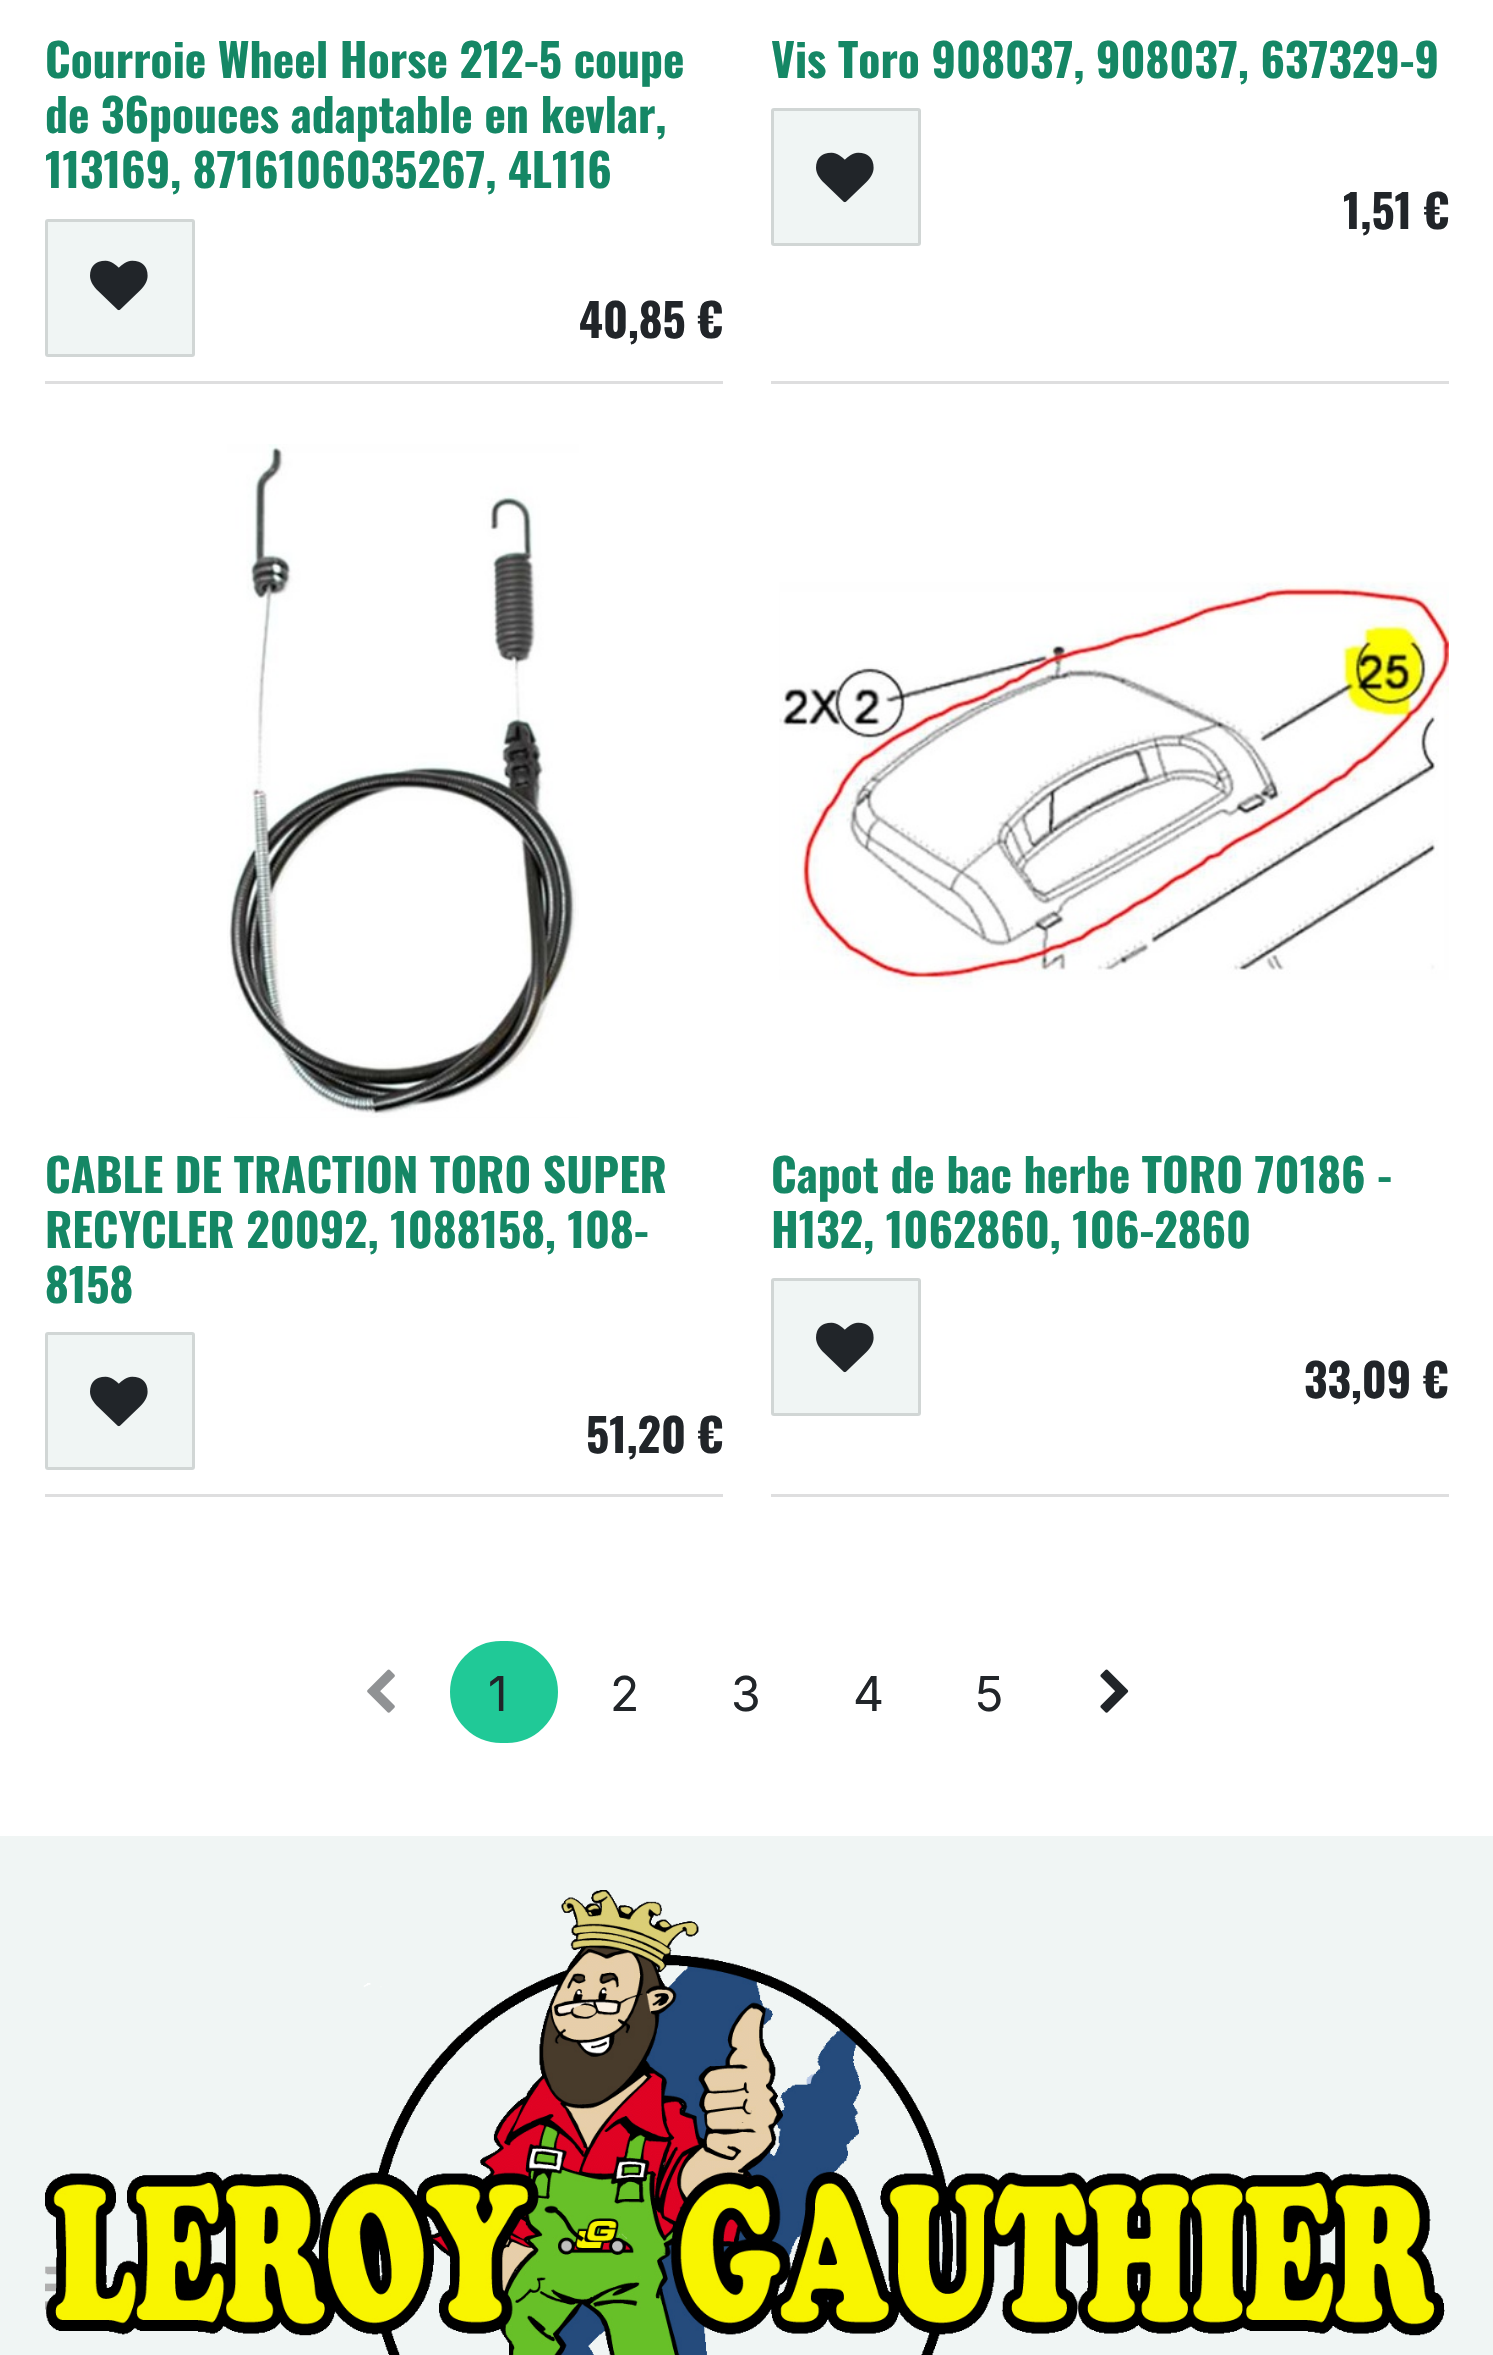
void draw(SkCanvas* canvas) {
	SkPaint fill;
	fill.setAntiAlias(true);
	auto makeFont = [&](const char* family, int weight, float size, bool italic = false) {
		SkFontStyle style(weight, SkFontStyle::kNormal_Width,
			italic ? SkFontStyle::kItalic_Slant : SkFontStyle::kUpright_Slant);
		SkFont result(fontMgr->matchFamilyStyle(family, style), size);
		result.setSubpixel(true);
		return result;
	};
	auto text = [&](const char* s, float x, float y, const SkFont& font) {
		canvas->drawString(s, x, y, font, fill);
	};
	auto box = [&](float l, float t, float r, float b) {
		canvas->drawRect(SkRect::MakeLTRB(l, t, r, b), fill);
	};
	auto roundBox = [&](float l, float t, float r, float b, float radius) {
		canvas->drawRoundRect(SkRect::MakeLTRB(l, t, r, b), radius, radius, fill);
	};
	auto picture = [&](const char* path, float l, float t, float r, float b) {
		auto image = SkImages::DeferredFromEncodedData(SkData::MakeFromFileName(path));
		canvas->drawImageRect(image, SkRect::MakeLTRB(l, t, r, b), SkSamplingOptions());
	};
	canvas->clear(0xFFFFFFFF);
	fill.setColor(0xFFDEDEDF);
	box(45, 381, 723, 384);
	fill.setColor(0xFFF0F5F4);
	roundBox(45, 219, 195, 357, 3);
	fill.setStyle(SkPaint::kStroke_Style);
	fill.setStrokeWidth(3);
	fill.setColor(0x26212529);
	canvas->drawRoundRect(SkRect::MakeLTRB(46.5f, 220.5f, 193.5f, 355.5f), 1.5f, 1.5f, fill);
	picture("image0.png", 90, 260, 148, 311);
	fill.setStyle(SkPaint::kFill_Style);
	fill.setColor(0xFFDEDEDF);
	box(771, 381, 1449, 384);
	fill.setColor(0xFFF0F5F4);
	roundBox(771, 108, 921, 246, 3);
	fill.setStyle(SkPaint::kStroke_Style);
	fill.setColor(0x26212529);
	canvas->drawRoundRect(SkRect::MakeLTRB(772.5f, 109.5f, 919.5f, 244.5f), 1.5f, 1.5f, fill);
	picture("image0.png", 816, 152, 874, 203);
	fill.setStyle(SkPaint::kFill_Style);
	fill.setColor(0xFFDEDEDF);
	box(45, 1494, 723, 1497);
	picture("image1.png", 227, 444, 579, 1118);
	fill.setColor(0xFFF0F5F4);
	roundBox(45, 1332, 195, 1470, 3);
	fill.setStyle(SkPaint::kStroke_Style);
	fill.setColor(0x26212529);
	canvas->drawRoundRect(SkRect::MakeLTRB(46.5f, 1333.5f, 193.5f, 1468.5f), 1.5f, 1.5f, fill);
	picture("image0.png", 90, 1376, 148, 1427);
	fill.setStyle(SkPaint::kFill_Style);
	fill.setColor(0xFFDEDEDF);
	box(771, 1494, 1449, 1497);
	picture("image2.png", 779, 581, 1449, 992);
	fill.setColor(0xFFF0F5F4);
	roundBox(771, 1278, 921, 1416, 3);
	fill.setStyle(SkPaint::kStroke_Style);
	fill.setColor(0x26212529);
	canvas->drawRoundRect(SkRect::MakeLTRB(772.5f, 1279.5f, 919.5f, 1414.5f), 1.5f, 1.5f, fill);
	picture("image0.png", 816, 1322, 874, 1373);
	picture("image3.png", 367, 1669, 395, 1713);
	fill.setStyle(SkPaint::kFill_Style);
	fill.setColor(0xFF20C997);
	canvas->drawRoundRect(SkRect::MakeLTRB(451.5f, 1642.5f, 556.5f, 1741.5f), 49.5f, 49.5f, fill);
	fill.setStyle(SkPaint::kStroke_Style);
	canvas->drawRoundRect(SkRect::MakeLTRB(451.5f, 1642.5f, 556.5f, 1741.5f), 49.5f, 49.5f, fill);
	picture("image4.png", 1100, 1669, 1129, 1713);
	fill.setStyle(SkPaint::kFill_Style);
	fill.setColor(0xFFF0F5F4);
	box(0, 1836, 1493, 2355);
	picture("image5.png", 45, 1890, 1445, 2355);
	auto font1 = makeFont("Oswald", 700, 45.6f);
	fill.setColor(0xFF158765);
	text("Courroie Wheel Horse 212-5 coupe", 45, 78, font1);
	text("de 36pouces adaptable en kevlar,", 45, 133, font1);
	text("113169, 8716106035267, 4L116", 45, 188, font1);
	fill.setColor(0xFF212529);
	text("40,85 €", 579, 338, font1);
	fill.setColor(0xFF158765);
	text("Vis Toro 908037, 908037, 637329-9", 771, 78, font1);
	fill.setColor(0xFF212529);
	text("1,51 €", 1343, 229, font1);
	fill.setColor(0xFF158765);
	text("CABLE DE TRACTION TORO SUPER", 45, 1193, font1);
	text("RECYCLER 20092, 1088158, 108-", 45, 1248, font1);
	text("8158", 45, 1303, font1);
	fill.setColor(0xFF212529);
	text("51,20 €", 586, 1453, font1);
	fill.setColor(0xFF158765);
	text("Capot de bac herbe TORO 70186 -", 771, 1193, font1);
	text("H132, 1062860, 106-2860", 771, 1248, font1);
	fill.setColor(0xFF212529);
	text("33,09 €", 1304, 1398, font1);
	auto font2 = makeFont("Inter", 400, 48);
	text("1", 488, 1711, font2);
	text("2", 610, 1711, font2);
	text("3", 731, 1711, font2);
	text("4", 853, 1711, font2);
	text("5", 975, 1711, font2);
}
